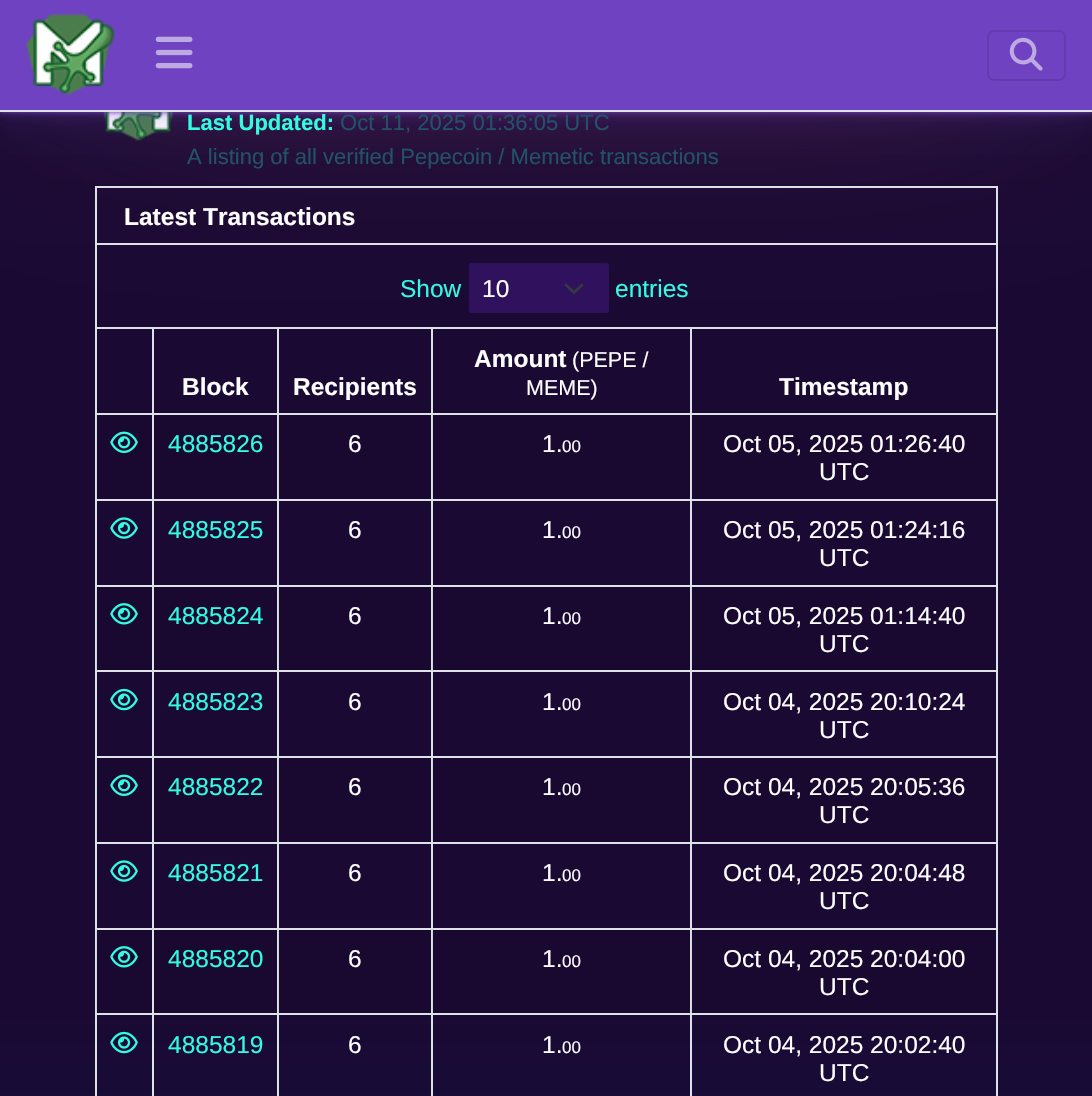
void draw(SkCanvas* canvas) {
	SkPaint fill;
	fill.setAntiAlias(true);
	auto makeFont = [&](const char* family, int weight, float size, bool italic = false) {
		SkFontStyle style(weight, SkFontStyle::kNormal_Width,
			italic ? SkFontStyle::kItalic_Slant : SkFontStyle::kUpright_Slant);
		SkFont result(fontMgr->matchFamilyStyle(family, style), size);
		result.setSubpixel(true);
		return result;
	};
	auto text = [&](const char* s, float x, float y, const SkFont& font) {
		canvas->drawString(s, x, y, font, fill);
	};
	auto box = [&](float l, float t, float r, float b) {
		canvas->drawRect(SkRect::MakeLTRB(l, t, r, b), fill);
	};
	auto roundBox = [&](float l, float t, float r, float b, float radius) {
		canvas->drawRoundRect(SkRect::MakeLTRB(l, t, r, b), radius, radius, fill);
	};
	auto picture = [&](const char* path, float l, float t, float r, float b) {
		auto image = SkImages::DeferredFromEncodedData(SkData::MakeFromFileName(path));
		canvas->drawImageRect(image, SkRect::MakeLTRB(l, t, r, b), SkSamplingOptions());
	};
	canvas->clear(0xFFFFFFFF);
	{
		const SkColor colors[] = {0xFF17082E, 0xFF1A0933, 0xFF1A0933, 0xFF0C1F4C};
		const float stops[] = {0, 0.07f, 0.8f, 1};
		const SkPoint ends[] = {{546, -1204}, {546, 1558}};
		fill.setShader(SkGradientShader::MakeLinear(ends, colors, stops, 4, SkTileMode::kClamp));
		fill.setAlpha(255);
	}
	box(0, 112, 1092, 1096);
	{
		const SkColor colors[] = {0xFF16082C, 0xFF190930, 0xFF190930, 0xFF0B1D48};
		const float stops[] = {0, 0.07f, 0.8f, 1};
		const SkPoint ends[] = {{546, -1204}, {546, 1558}};
		fill.setShader(SkGradientShader::MakeLinear(ends, colors, stops, 4, SkTileMode::kClamp));
		fill.setAlpha(255);
	}
	box(692, 930, 996, 1013);
	box(433, 930, 690, 1013);
	box(279, 930, 431, 1013);
	box(97, 930, 152, 1013);
	box(692, 758, 996, 842);
	box(433, 758, 690, 842);
	box(279, 758, 431, 842);
	box(97, 758, 152, 842);
	box(692, 587, 996, 670);
	box(433, 587, 690, 670);
	box(279, 587, 431, 670);
	box(97, 587, 152, 670);
	box(692, 415, 996, 499);
	box(433, 415, 690, 499);
	box(279, 415, 431, 499);
	box(97, 415, 152, 499);
	fill.setShader(nullptr);
	fill.setColor(0x4DE75E66);
	fill.setMaskFilter(SkMaskFilter::MakeBlur(kNormal_SkBlurStyle, 112));
	canvas->drawRoundRect(SkRect::MakeLTRB(95, -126, 998, 32), 4, 4, fill);
	fill.setMaskFilter(nullptr);
	picture("image3.png", 103, 112, 174, 141);
	fill.setColor(0xFFDEE2E6);
	box(95, 186, 998, 188);
	box(996, 186, 998, 243);
	box(95, 186, 97, 243);
	box(95, 243, 998, 245);
	box(996, 245, 998, 327);
	box(95, 245, 97, 327);
	fill.setColor(0xFF30115E);
	roundBox(469, 263, 609, 313, 2);
	fill.setColor(0x1A6F42C1);
	fill.setMaskFilter(SkMaskFilter::MakeBlur(kNormal_SkBlurStyle, 56));
	canvas->drawRect(SkRect::MakeLTRB(0, 0, 1092, 112), fill);
	fill.setMaskFilter(nullptr);
	fill.setColor(0x4D6F42C1);
	fill.setMaskFilter(SkMaskFilter::MakeBlur(kNormal_SkBlurStyle, 14));
	canvas->drawRect(SkRect::MakeLTRB(0, 0, 1092, 112), fill);
	fill.setMaskFilter(nullptr);
	fill.setColor(0x666F42C1);
	fill.setMaskFilter(SkMaskFilter::MakeBlur(kNormal_SkBlurStyle, 3.5f));
	canvas->drawRect(SkRect::MakeLTRB(0, 0, 1092, 112), fill);
	fill.setMaskFilter(nullptr);
	fill.setColor(0xE66F42C1);
	fill.setMaskFilter(SkMaskFilter::MakeBlur(kNormal_SkBlurStyle, 2));
	canvas->drawRect(SkRect::MakeLTRB(0, 0, 1092, 112), fill);
	fill.setMaskFilter(nullptr);
	fill.setColor(0xFF6F42C1);
	box(0, 0, 1092, 110);
	fill.setColor(0xFFDEE2E6);
	box(0, 110, 1092, 112);
	picture("image0.png", 25, 13, 115, 95);
	picture("image1.png", 155, 36, 193, 69);
	fill.setStyle(SkPaint::kStroke_Style);
	fill.setStrokeWidth(2);
	fill.setColor(0xFF643BAE);
	canvas->drawRoundRect(SkRect::MakeLTRB(988, 31, 1065, 80), 6, 6, fill);
	picture("image2.png", 1009, 37, 1043, 71);
	fill.setStrokeWidth(2.6f);
	fill.setStrokeCap(SkPaint::kRound_Cap);
	fill.setStrokeJoin(SkPaint::kRound_Join);
	fill.setColor(0xFF343A40);
	canvas->drawPath(SkPathBuilder().moveTo(566, 285).lineTo(574, 292.5f).lineTo(582, 285).detach(), fill);
	fill.setStyle(SkPaint::kFill_Style);
	fill.setColor(0xFFDEE2E6);
	box(95, 327, 998, 329);
	box(95, 327, 97, 1096);
	box(152, 329, 154, 499);
	box(96, 413, 154, 415);
	box(277, 329, 279, 415);
	box(154, 413, 278, 415);
	box(431, 329, 433, 415);
	box(278, 413, 432, 415);
	box(690, 329, 692, 415);
	box(432, 413, 691, 415);
	box(996, 329, 998, 499);
	box(691, 413, 998, 415);
	fill.setColor(0xFFD3D7DB);
	box(96, 929, 97, 1013);
	box(96, 758, 97, 842);
	box(96, 586, 97, 670);
	box(96, 415, 97, 499);
	picture("image4.png", 110, 431, 138, 453);
	fill.setColor(0xFF190930);
	box(154, 415, 277, 499);
	fill.setColor(0xFFDEE2E6);
	box(277, 415, 278, 499);
	fill.setColor(0xFFD3D7DB);
	box(278, 415, 279, 499);
	fill.setColor(0xFFDEE2E6);
	box(431, 415, 432, 499);
	fill.setColor(0xFFD3D7DB);
	box(432, 415, 433, 499);
	fill.setColor(0xFFDEE2E6);
	box(690, 415, 691, 499);
	fill.setColor(0xFFD3D7DB);
	box(691, 415, 692, 499);
	fill.setColor(0xFFDEE2E6);
	box(96, 499, 278, 501);
	box(152, 499, 154, 585);
	picture("image5.png", 110, 517, 138, 539);
	box(277, 499, 279, 585);
	box(278, 499, 432, 501);
	box(431, 499, 433, 585);
	box(432, 499, 691, 501);
	box(690, 499, 692, 585);
	box(691, 499, 998, 501);
	box(996, 499, 998, 585);
	box(96, 585, 278, 587);
	box(152, 585, 154, 670);
	picture("image6.png", 110, 603, 138, 625);
	fill.setColor(0xFF190930);
	box(154, 587, 277, 670);
	fill.setColor(0xFFDEE2E6);
	box(277, 585, 278, 670);
	fill.setColor(0xFFD3D7DB);
	box(278, 586, 279, 670);
	fill.setColor(0xFFDEE2E6);
	box(278, 585, 432, 587);
	box(431, 585, 432, 670);
	fill.setColor(0xFFD3D7DB);
	box(432, 586, 433, 670);
	fill.setColor(0xFFDEE2E6);
	box(432, 585, 691, 587);
	box(690, 585, 691, 670);
	fill.setColor(0xFFD3D7DB);
	box(691, 586, 692, 670);
	fill.setColor(0xFFDEE2E6);
	box(691, 585, 998, 587);
	box(996, 585, 998, 670);
	box(96, 670, 278, 672);
	box(152, 670, 154, 756);
	picture("image7.png", 110, 688, 138, 711);
	box(277, 670, 279, 756);
	box(278, 670, 432, 672);
	box(431, 670, 433, 756);
	box(432, 670, 691, 672);
	box(690, 670, 692, 756);
	box(691, 670, 998, 672);
	box(996, 670, 998, 756);
	box(96, 756, 998, 758);
	box(152, 756, 154, 842);
	picture("image4.png", 110, 774, 138, 796);
	fill.setColor(0xFF190930);
	box(154, 758, 277, 842);
	fill.setColor(0xFFDEE2E6);
	box(277, 756, 278, 842);
	fill.setColor(0xFFD3D7DB);
	box(278, 758, 279, 842);
	fill.setColor(0xFFDEE2E6);
	box(431, 756, 432, 842);
	fill.setColor(0xFFD3D7DB);
	box(432, 758, 433, 842);
	fill.setColor(0xFFDEE2E6);
	box(690, 756, 691, 842);
	fill.setColor(0xFFD3D7DB);
	box(691, 758, 692, 842);
	fill.setColor(0xFFDEE2E6);
	box(996, 756, 998, 842);
	box(96, 842, 278, 844);
	box(152, 842, 154, 928);
	picture("image5.png", 110, 860, 138, 882);
	box(277, 842, 279, 928);
	box(278, 842, 432, 844);
	box(431, 842, 433, 928);
	box(432, 842, 691, 844);
	box(690, 842, 692, 928);
	box(691, 842, 998, 844);
	box(996, 842, 998, 928);
	box(96, 928, 278, 930);
	box(152, 928, 154, 1013);
	picture("image6.png", 110, 946, 138, 968);
	fill.setColor(0xFF190930);
	box(154, 930, 277, 1013);
	fill.setColor(0xFFDEE2E6);
	box(277, 928, 278, 1013);
	fill.setColor(0xFFD3D7DB);
	box(278, 929, 279, 1013);
	fill.setColor(0xFFDEE2E6);
	box(278, 928, 432, 930);
	box(431, 928, 432, 1013);
	fill.setColor(0xFFD3D7DB);
	box(432, 929, 433, 1013);
	fill.setColor(0xFFDEE2E6);
	box(432, 928, 691, 930);
	box(690, 928, 691, 1013);
	fill.setColor(0xFFD3D7DB);
	box(691, 929, 692, 1013);
	fill.setColor(0xFFDEE2E6);
	box(691, 928, 998, 930);
	box(996, 928, 998, 1013);
	box(96, 1013, 278, 1015);
	box(152, 1013, 154, 1096);
	picture("image8.png", 110, 1031, 138, 1054);
	box(277, 1013, 279, 1096);
	box(278, 1013, 432, 1015);
	box(431, 1013, 433, 1096);
	box(432, 1013, 691, 1015);
	box(690, 1013, 692, 1096);
	box(691, 1013, 998, 1015);
	box(996, 1013, 998, 1096);
	auto font1 = makeFont("Liberation Sans", 700, 22.05f);
	fill.setColor(0xFF32FBE2);
	text("Last Updated:", 187, 130, font1);
	auto font2 = makeFont("Liberation Sans", 400, 22.05f);
	fill.setColor(0xFF215268);
	text("Oct 11, 2025 01:36:05 UTC", 340, 130, font2);
	text("A listing of all verified Pepecoin / Memetic transactions", 187, 164, font2);
	auto font3 = makeFont("Liberation Sans", 700, 24.5f);
	fill.setColor(0xFFFFFFFF);
	text("Latest Transactions", 124, 225, font3);
	auto font4 = makeFont("Liberation Sans", 400, 24.5f);
	fill.setColor(0xFF32FBE2);
	text("Show", 400, 297, font4);
	fill.setColor(0xFFFFFFFF);
	text("10", 482, 297, font4);
	fill.setColor(0xFF32FBE2);
	text("entries", 615, 297, font4);
	fill.setColor(0xFFFFFFFF);
	text("Block", 182, 395, font3);
	text("Recipients", 293, 395, font3);
	text("Amount", 474, 367, font3);
	auto font5 = makeFont("Liberation Sans", 400, 21.5f);
	text("(PEPE /", 572, 367, font5);
	text("MEME)", 526, 395, font5);
	text("Timestamp", 779, 395, font3);
	fill.setColor(0xFF32FBE2);
	text("4885826", 168, 452, font4);
	fill.setColor(0xFFFFFFFF);
	text("6", 348, 452, font4);
	text("1.", 542, 452, font4);
	auto font6 = makeFont("Liberation Sans", 400, 17);
	text("00", 562, 452, font6);
	text("Oct 05, 2025 01:26:40", 723, 452, font4);
	text("UTC", 819, 480, font4);
	fill.setColor(0xFF32FBE2);
	text("4885825", 168, 538, font4);
	fill.setColor(0xFFFFFFFF);
	text("6", 348, 538, font4);
	text("1.", 542, 538, font4);
	text("00", 562, 538, font6);
	text("Oct 05, 2025 01:24:16", 723, 538, font4);
	text("UTC", 819, 566, font4);
	fill.setColor(0xFF32FBE2);
	text("4885824", 168, 624, font4);
	fill.setColor(0xFFFFFFFF);
	text("6", 348, 624, font4);
	text("1.", 542, 624, font4);
	text("00", 562, 624, font6);
	text("Oct 05, 2025 01:14:40", 723, 624, font4);
	text("UTC", 819, 652, font4);
	fill.setColor(0xFF32FBE2);
	text("4885823", 168, 710, font4);
	fill.setColor(0xFFFFFFFF);
	text("6", 348, 710, font4);
	text("1.", 542, 710, font4);
	text("00", 562, 710, font6);
	text("Oct 04, 2025 20:10:24", 723, 710, font4);
	text("UTC", 819, 738, font4);
	fill.setColor(0xFF32FBE2);
	text("4885822", 168, 795, font4);
	fill.setColor(0xFFFFFFFF);
	text("6", 348, 795, font4);
	text("1.", 542, 795, font4);
	text("00", 562, 795, font6);
	text("Oct 04, 2025 20:05:36", 723, 795, font4);
	text("UTC", 819, 823, font4);
	fill.setColor(0xFF32FBE2);
	text("4885821", 168, 881, font4);
	fill.setColor(0xFFFFFFFF);
	text("6", 348, 881, font4);
	text("1.", 542, 881, font4);
	text("00", 562, 881, font6);
	text("Oct 04, 2025 20:04:48", 723, 881, font4);
	text("UTC", 819, 909, font4);
	fill.setColor(0xFF32FBE2);
	text("4885820", 168, 967, font4);
	fill.setColor(0xFFFFFFFF);
	text("6", 348, 967, font4);
	text("1.", 542, 967, font4);
	text("00", 562, 967, font6);
	text("Oct 04, 2025 20:04:00", 723, 967, font4);
	text("UTC", 819, 995, font4);
	fill.setColor(0xFF32FBE2);
	text("4885819", 168, 1053, font4);
	fill.setColor(0xFFFFFFFF);
	text("6", 348, 1053, font4);
	text("1.", 542, 1053, font4);
	text("00", 562, 1053, font6);
	text("Oct 04, 2025 20:02:40", 723, 1053, font4);
	text("UTC", 819, 1081, font4);
}
